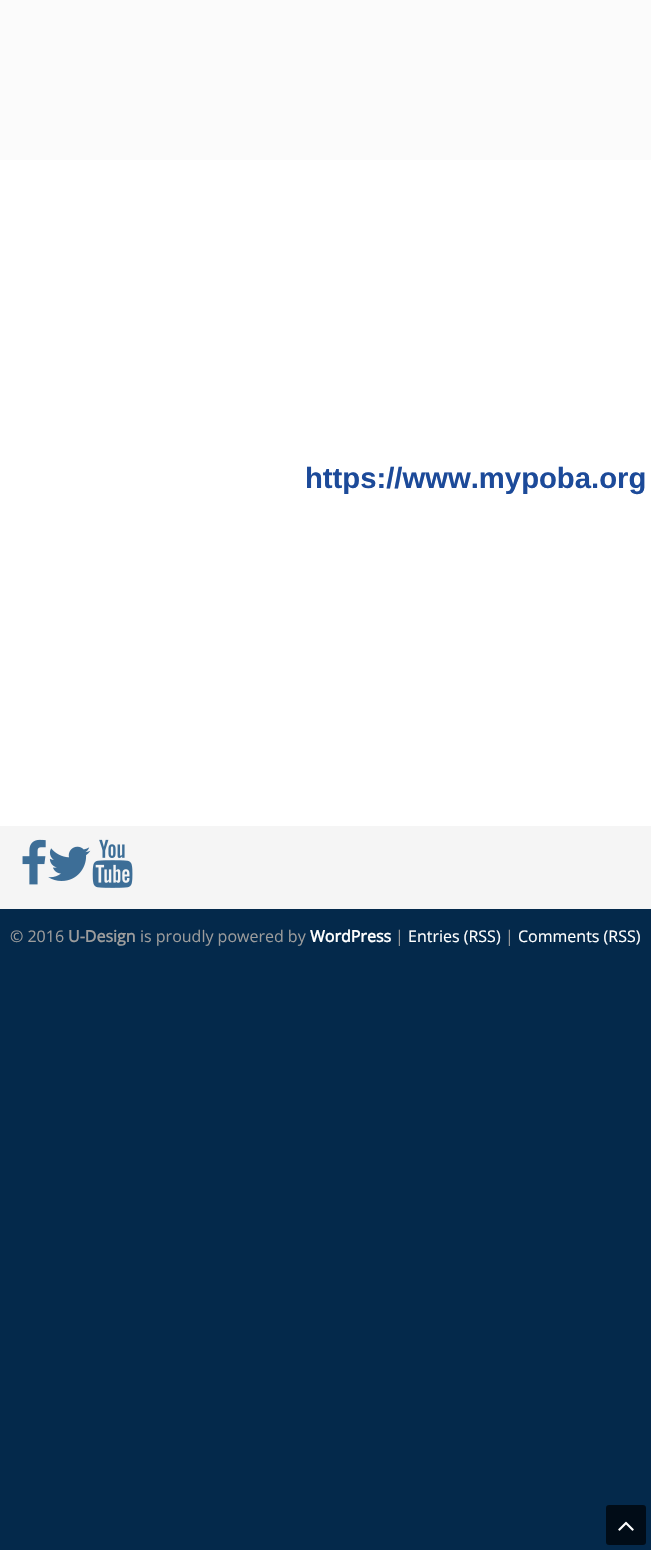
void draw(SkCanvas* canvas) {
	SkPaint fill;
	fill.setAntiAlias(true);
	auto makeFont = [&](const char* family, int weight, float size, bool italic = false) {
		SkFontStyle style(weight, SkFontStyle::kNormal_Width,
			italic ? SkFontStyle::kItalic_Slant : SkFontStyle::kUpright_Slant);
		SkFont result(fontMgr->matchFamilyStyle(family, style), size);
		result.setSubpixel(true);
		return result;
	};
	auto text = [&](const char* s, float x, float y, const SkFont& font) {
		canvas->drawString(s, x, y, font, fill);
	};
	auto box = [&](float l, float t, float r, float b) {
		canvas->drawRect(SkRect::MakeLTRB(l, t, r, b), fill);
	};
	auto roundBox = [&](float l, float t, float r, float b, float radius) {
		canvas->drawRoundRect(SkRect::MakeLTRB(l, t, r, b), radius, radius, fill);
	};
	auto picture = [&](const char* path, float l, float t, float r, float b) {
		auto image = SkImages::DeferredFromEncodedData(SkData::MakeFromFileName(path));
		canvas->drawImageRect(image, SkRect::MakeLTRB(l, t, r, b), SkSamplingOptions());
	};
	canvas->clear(0xFF04294B);
	fill.setColor(0xFFFBFBFB);
	box(0, 0, 651, 160);
	fill.setColor(0xFFFFFFFF);
	box(0, 160, 651, 826);
	fill.setColor(0xFFF5F5F5);
	box(0, 826, 651, 909);
	picture("image0.png", 22, 839, 46, 885);
	picture("image1.png", 48, 846, 91, 881);
	picture("image2.png", 92, 839, 133, 888);
	fill.setColor(0xFF010C17);
	roundBox(606, 1505, 646, 1545, 3);
	picture("image3.png", 618, 1521, 634, 1531);
	auto font1 = makeFont("Liberation Sans", 700, 29.25f);
	fill.setColor(0xFF1C4A99);
	text("https://www.mypoba.org", 305, 488, font1);
	auto font2 = makeFont("Open Sans", 400, 16);
	fill.setColor(0xFF9C9C9C);
	text("© 2016", 10, 942, font2);
	auto font3 = makeFont("Open Sans", 700, 16);
	text("U-Design", 68, 942, font3);
	text("is proudly powered by", 140, 942, font2);
	fill.setColor(0xFFFFFFFF);
	text("WordPress", 310, 942, font3);
	fill.setColor(0xFF9C9C9C);
	text("|", 395, 942, font2);
	fill.setColor(0xFFFFFFFF);
	text("Entries (RSS)", 408, 942, font2);
	fill.setColor(0xFF9C9C9C);
	text("|", 505, 942, font2);
	fill.setColor(0xFFFFFFFF);
	text("Comments (RSS)", 518, 942, font2);
}
